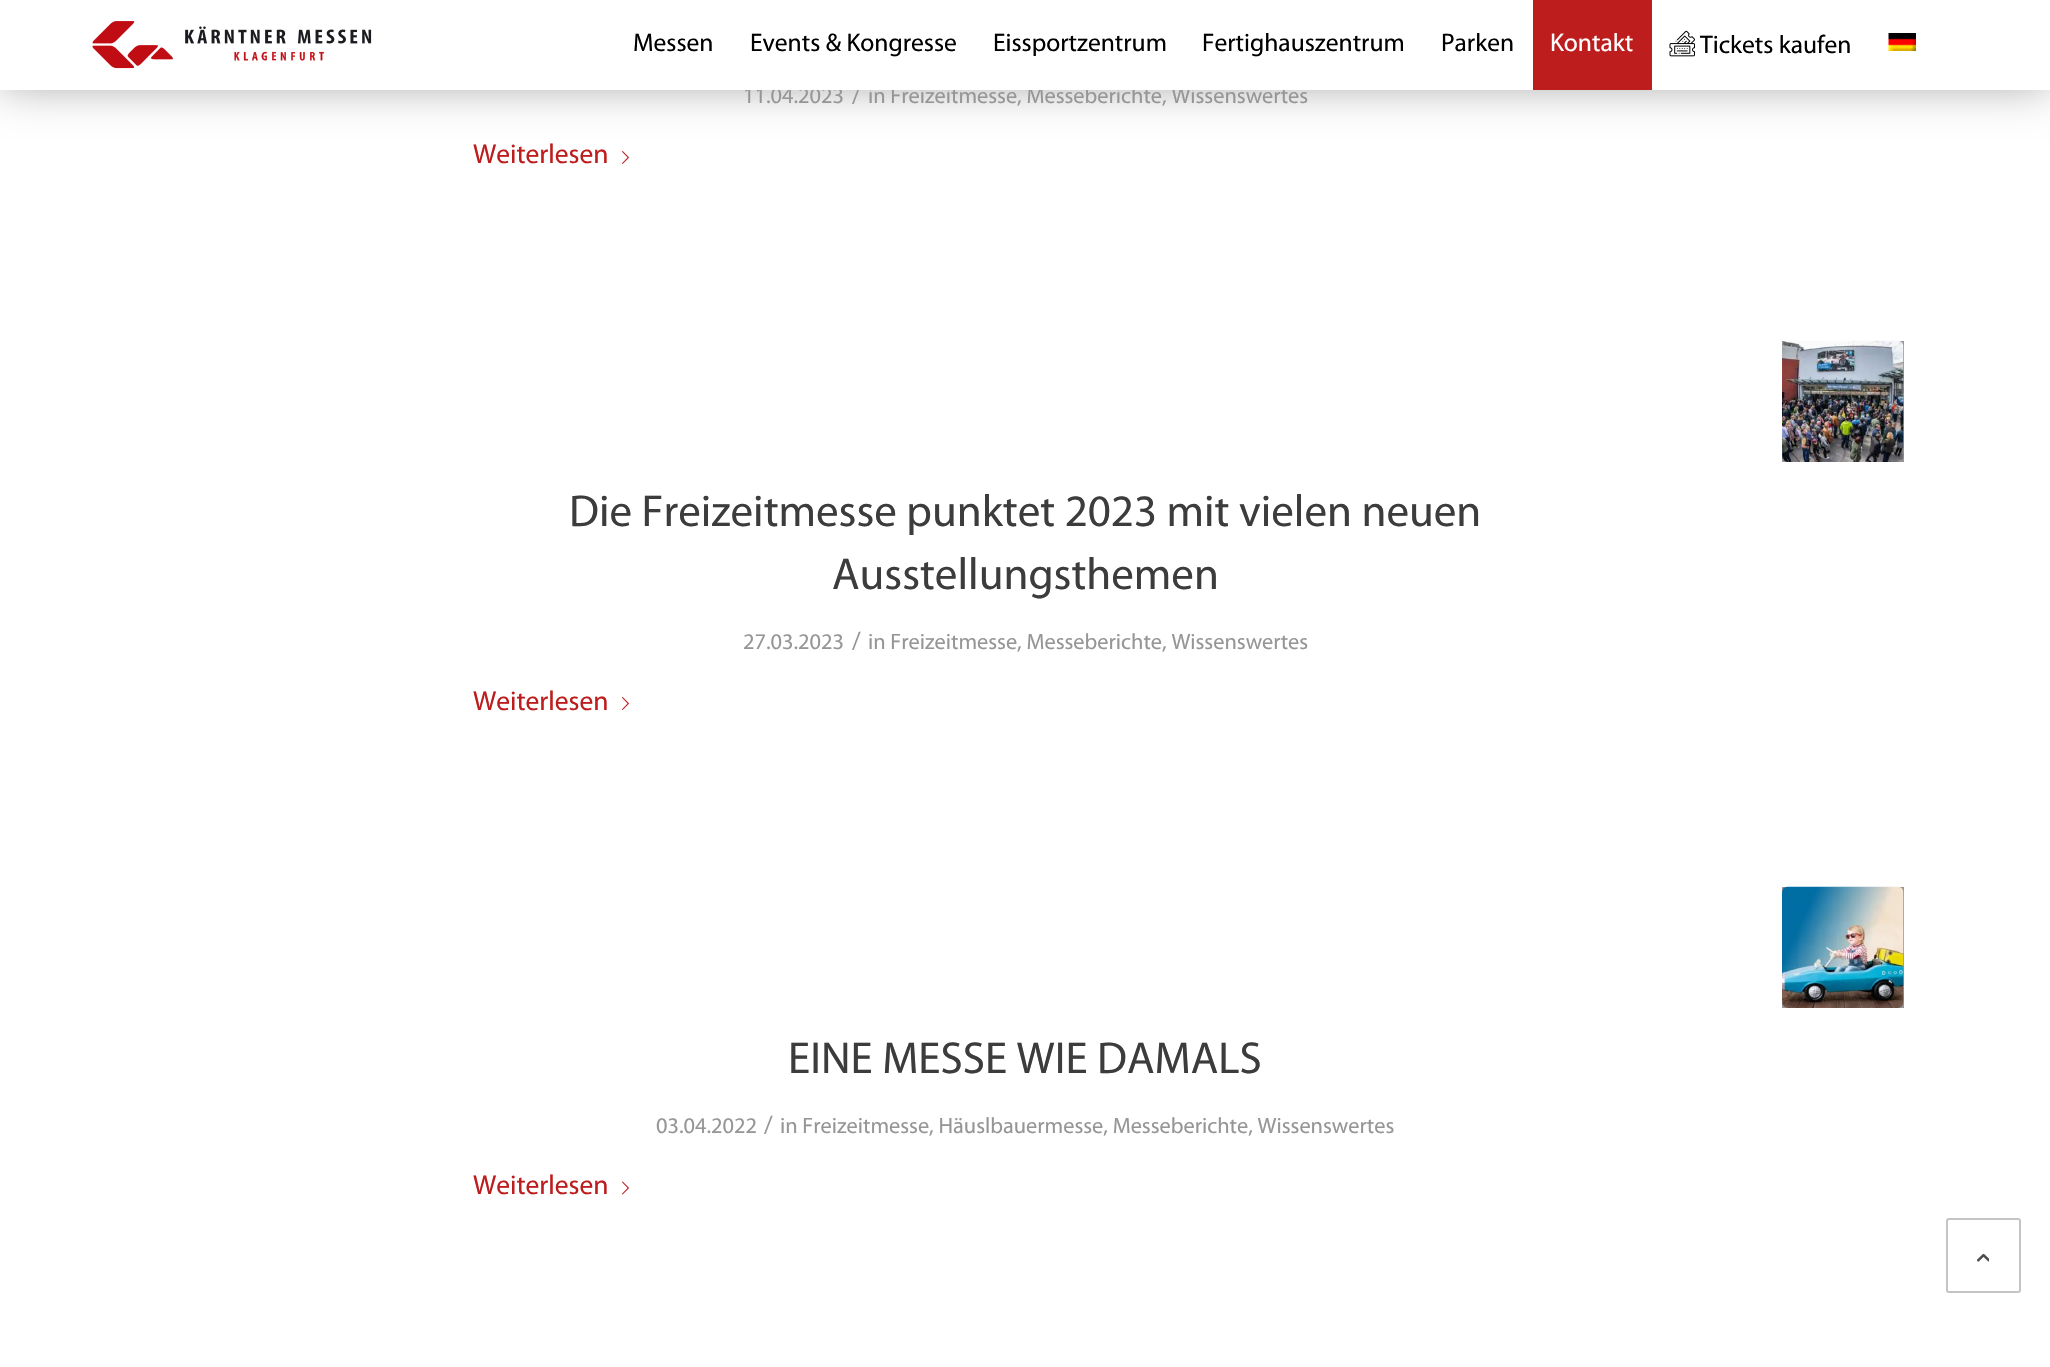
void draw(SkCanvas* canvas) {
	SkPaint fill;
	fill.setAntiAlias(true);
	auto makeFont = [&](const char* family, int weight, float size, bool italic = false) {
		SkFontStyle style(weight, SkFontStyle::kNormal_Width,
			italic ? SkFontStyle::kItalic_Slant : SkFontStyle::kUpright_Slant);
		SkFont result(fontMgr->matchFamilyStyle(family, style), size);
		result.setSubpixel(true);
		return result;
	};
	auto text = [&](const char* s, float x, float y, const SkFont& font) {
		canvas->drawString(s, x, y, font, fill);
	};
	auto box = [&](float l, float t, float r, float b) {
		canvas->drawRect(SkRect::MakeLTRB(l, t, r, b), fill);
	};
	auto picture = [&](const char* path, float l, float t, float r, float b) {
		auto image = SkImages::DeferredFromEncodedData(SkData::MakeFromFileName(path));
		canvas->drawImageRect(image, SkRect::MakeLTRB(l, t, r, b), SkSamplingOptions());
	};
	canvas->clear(0xFFFFFFFF);
	picture("image3.png", 622, 151, 629, 164);
	fill.setColor(0x66000000);
	fill.setMaskFilter(SkMaskFilter::MakeBlur(kNormal_SkBlurStyle, 24));
	canvas->drawRect(SkRect::MakeLTRB(0, -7, 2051, 83), fill);
	fill.setMaskFilter(nullptr);
	fill.setColor(0xFF969696);
	box(1782, 341, 1904, 462);
	picture("image4.png", 1782, 340, 1904, 462);
	picture("image3.png", 622, 697, 629, 710);
	box(1782, 887, 1904, 1008);
	picture("image5.png", 1782, 886, 1904, 1008);
	picture("image6.png", 622, 1181, 629, 1195);
	fill.setStyle(SkPaint::kStroke_Style);
	fill.setStrokeWidth(2);
	fill.setColor(0xFFC4C4C4);
	canvas->drawRoundRect(SkRect::MakeLTRB(1947, 1219, 2020, 1292), 2, 2, fill);
	picture("image7.png", 1977, 1253, 1989, 1262);
	auto font1 = makeFont("Myriad", 400, 22.35f);
	fill.setStyle(SkPaint::kFill_Style);
	fill.setColor(0xFF969696);
	text("11.04.2023", 743, 103, font1);
	auto font2 = makeFont("Myriad", 400, 25);
	text("/", 852, 103, font2);
	text("in Freizeitmesse, Messeberichte, Wissenswertes", 868, 103, font1);
	fill.setColor(0xFFFFFFFF);
	box(0, 0, 2050, 90);
	picture("image2.png", 1888, 33, 1916, 51);
	auto font3 = makeFont("Myriad", 400, 25.5f);
	fill.setColor(0xFF000000);
	text("Tickets kaufen", 1700, 53, font3);
	picture("image1.png", 1669, 30, 1695, 57);
	fill.setColor(0xFFBD1D1D);
	box(1533, 0, 1652, 90);
	fill.setColor(0xFFFFFFFF);
	text("Kontakt", 1550, 51, font3);
	fill.setColor(0xFF000000);
	text("Parken", 1441, 51, font3);
	text("Fertighauszentrum", 1202, 51, font3);
	text("Eissportzentrum", 993, 51, font3);
	text("Events & Kongresse", 750, 51, font3);
	text("Messen", 633, 51, font3);
	picture("image0.png", 92, 21, 372, 69);
	auto font4 = makeFont("Myriad", 400, 27.5f);
	fill.setColor(0xFFBD1D1D);
	text("Weiterlesen", 473, 163, font4);
	auto font5 = makeFont("Myriad", 400, 45);
	fill.setColor(0xFF3C3C3C);
	text("Die Freizeitmesse punktet 2023 mit vielen neuen", 569, 526, font5);
	text("Ausstellungsthemen", 832, 589, font5);
	fill.setColor(0xFF969696);
	text("27.03.2023", 743, 649, font1);
	text("/", 852, 649, font2);
	text("in Freizeitmesse, Messeberichte, Wissenswertes", 868, 649, font1);
	fill.setColor(0xFFBD1D1D);
	text("Weiterlesen", 473, 710, font4);
	fill.setColor(0xFF3C3C3C);
	text("EINE MESSE WIE DAMALS", 788, 1073, font5);
	fill.setColor(0xFF969696);
	text("03.04.2022", 656, 1133, font1);
	text("/", 764, 1133, font2);
	text("in Freizeitmesse, Häuslbauermesse, Messeberichte, Wissenswertes", 780, 1133, font1);
	fill.setColor(0xFFBD1D1D);
	text("Weiterlesen", 473, 1194, font4);
}
